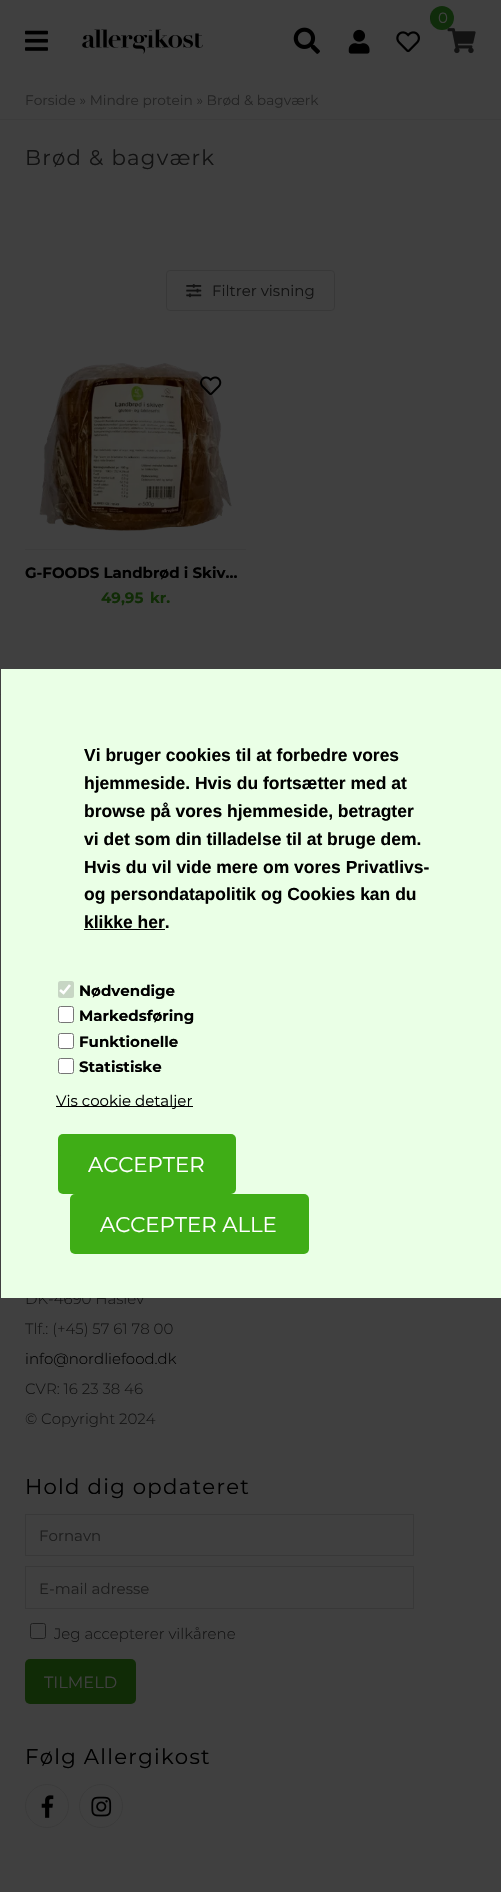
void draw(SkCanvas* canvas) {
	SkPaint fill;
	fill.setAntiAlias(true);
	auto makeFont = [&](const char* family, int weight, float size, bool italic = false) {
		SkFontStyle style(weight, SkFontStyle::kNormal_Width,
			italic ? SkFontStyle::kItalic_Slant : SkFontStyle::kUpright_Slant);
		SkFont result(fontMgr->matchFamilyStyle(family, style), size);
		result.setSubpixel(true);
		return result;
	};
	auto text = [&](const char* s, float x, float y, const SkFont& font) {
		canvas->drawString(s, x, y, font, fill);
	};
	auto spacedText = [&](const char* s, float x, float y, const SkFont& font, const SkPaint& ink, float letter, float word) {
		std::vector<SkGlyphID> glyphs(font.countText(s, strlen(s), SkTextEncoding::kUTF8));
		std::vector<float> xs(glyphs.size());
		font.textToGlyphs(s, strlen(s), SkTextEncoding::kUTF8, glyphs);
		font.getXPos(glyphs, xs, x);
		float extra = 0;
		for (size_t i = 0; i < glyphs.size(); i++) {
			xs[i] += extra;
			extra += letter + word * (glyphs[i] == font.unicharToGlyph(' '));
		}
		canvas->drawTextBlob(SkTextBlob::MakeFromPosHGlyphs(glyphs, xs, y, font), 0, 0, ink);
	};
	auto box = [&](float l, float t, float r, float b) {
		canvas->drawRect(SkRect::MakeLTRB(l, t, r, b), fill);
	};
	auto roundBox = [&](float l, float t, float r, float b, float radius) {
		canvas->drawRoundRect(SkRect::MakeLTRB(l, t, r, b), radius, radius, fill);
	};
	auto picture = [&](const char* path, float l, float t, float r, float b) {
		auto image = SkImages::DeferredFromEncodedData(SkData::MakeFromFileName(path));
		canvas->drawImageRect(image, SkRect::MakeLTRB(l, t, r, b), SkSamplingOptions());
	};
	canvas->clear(0xFF404040);
	picture("image0.png", 447, 28, 476, 54);
	fill.setColor(0xFF102C0B);
	canvas->drawCircle(442, 18, 12, fill);
	fill.setColor(0x1A000000);
	box(430, 13, 431, 24);
	picture("image1.png", 25, 30, 48, 51);
	picture("image2.png", 82, 29, 203, 54);
	picture("image3.png", 293, 27, 320, 54);
	picture("image4.png", 348, 29, 370, 54);
	picture("image5.png", 396, 31, 420, 53);
	fill.setColor(0xFF3C3C3C);
	box(0, 119, 501, 120);
	fill.setStyle(SkPaint::kStroke_Style);
	fill.setStrokeWidth(1);
	fill.setColor(0xFF383838);
	canvas->drawRoundRect(SkRect::MakeLTRB(166.5f, 270.5f, 334.5f, 310.5f), 3.5f, 3.5f, fill);
	picture("image6.png", 186, 284, 202, 298);
	fill.setStyle(SkPaint::kFill_Style);
	fill.setColor(0xFF3C3C3C);
	box(25, 549, 246, 550);
	picture("image7.png", 39, 363, 232, 531);
	picture("image8.png", 200, 376, 222, 396);
	box(0, 694, 1, 695);
	box(0, 1155, 1, 1156);
	fill.setStyle(SkPaint::kStroke_Style);
	fill.setColor(0xFF383838);
	canvas->drawRect(SkRect::MakeLTRB(25.5f, 1514.5f, 413.5f, 1555.5f), fill);
	canvas->drawRect(SkRect::MakeLTRB(25.5f, 1566.5f, 413.5f, 1608.5f), fill);
	fill.setColor(0xFF1E1E1E);
	canvas->drawRoundRect(SkRect::MakeLTRB(30.5f, 1623.5f, 45.5f, 1638.5f), 2, 2, fill);
	fill.setStyle(SkPaint::kFill_Style);
	fill.setColor(0xFF102B06);
	roundBox(25, 1659, 136, 1704, 5);
	fill.setStyle(SkPaint::kStroke_Style);
	fill.setColor(0xFF3A3A3A);
	canvas->drawCircle(47, 1806, 21.5f, fill);
	picture("image9.png", 41, 1795, 54, 1818);
	canvas->drawCircle(101, 1806, 21.5f, fill);
	picture("image10.png", 91, 1796, 112, 1817);
	auto font1 = makeFont("Montserrat", 400, 15);
	fill.setStyle(SkPaint::kFill_Style);
	fill.setColor(0xFF404040);
	text("0", 438, 23, font1);
	auto font2 = makeFont("Montserrat", 400, 13.75f);
	fill.setColor(0xFF232323);
	text("Forside » Mindre protein » Brød & bagværk", 25, 105, font2);
	auto font3 = makeFont("Montserrat", 400, 21.25f);
	fill.setColor(0xFF121212);
	spacedText("Brød & bagværk", 25, 165, font3, fill, 1.25f, 0);
	text("Filtrer visning", 212, 296, font1);
	auto font4 = makeFont("Montserrat", 700, 15);
	fill.setColor(0xFF000000);
	text("G-FOODS Landbrød i Skiv…", 25, 578, font4);
	fill.setColor(0xFF102B06);
	text("49,95", 101, 603, font4);
	text("kr.", 150, 603, font4);
	auto font5 = makeFont("Montserrat", 300, 15);
	fill.setColor(0xFF121212);
	text("DK-4690 Haslev", 25, 1304, font5);
	text("Tlf.: (+45) 57 61 78 00", 25, 1334, font5);
	fill.setColor(0xFF000000);
	text("info@nordliefood.dk", 25, 1364, font5);
	fill.setColor(0xFF121212);
	text("CVR: 16 23 38 46", 25, 1394, font5);
	text("© Copyright 2024", 25, 1424, font5);
	fill.setColor(0xFF000000);
	spacedText("Hold dig opdateret", 25, 1494, font3, fill, 1.25f, 0);
	fill.setColor(0xFF1D1D1D);
	text("Fornavn", 39, 1541, font1);
	text("E-mail adresse", 39, 1594, font1);
	fill.setColor(0xFF121212);
	text("Jeg accepterer vilkårene", 54, 1639, font5);
	auto font6 = makeFont("Montserrat", 400, 16.25f);
	fill.setColor(0xFF404040);
	text("TILMELD", 44, 1688, font6);
	fill.setColor(0xFF000000);
	spacedText("Følg Allergikost", 25, 1764, font3, fill, 1.25f, 0);
	fill.setColor(0xFFEAFFE6);
	box(1, 669, 501, 1298);
	auto font7 = makeFont("Liberation Sans", 700, 17.5f);
	fill.setColor(0xFF000000);
	text("Vi bruger cookies til at forbedre vores", 84, 761, font7);
	text("hjemmeside. Hvis du fortsætter med at", 84, 789, font7);
	text("browse på vores hjemmeside, betragter", 84, 817, font7);
	text("vi det som din tilladelse til at bruge dem.", 84, 845, font7);
	text("Hvis du vil vide mere om vores Privatlivs-", 84, 873, font7);
	text("og persondatapolitik og Cookies kan du", 84, 900, font7);
	text("klikke her.", 84, 928, font7);
	box(84, 929, 165, 930);
	fill.setColor(0xFFC7D6C4);
	roundBox(58, 981, 74, 998, 2.5f);
	fill.setStyle(SkPaint::kStroke_Style);
	fill.setStrokeWidth(2.6f);
	fill.setColor(0xFFFFFFFF);
	canvas->drawPath(SkPathBuilder().moveTo(60, 990).lineTo(63.5f, 993).lineTo(70, 985).detach(), fill);
	fill.setStyle(SkPaint::kFill_Style);
	fill.setColor(0xFF000000);
	text("Nødvendige", 79, 996, font4);
	fill.setColor(0xFFFFFFFF);
	canvas->drawRoundRect(SkRect::MakeLTRB(58.5f, 1006.5f, 73.5f, 1022.5f), 2, 2, fill);
	fill.setStyle(SkPaint::kStroke_Style);
	fill.setStrokeWidth(1);
	fill.setColor(0xFF767676);
	canvas->drawRoundRect(SkRect::MakeLTRB(58.5f, 1006.5f, 73.5f, 1022.5f), 2, 2, fill);
	fill.setStyle(SkPaint::kFill_Style);
	fill.setColor(0xFF000000);
	text("Markedsføring", 79, 1021, font4);
	fill.setColor(0xFFFFFFFF);
	canvas->drawRoundRect(SkRect::MakeLTRB(58.5f, 1033.5f, 73.5f, 1048.5f), 2, 2, fill);
	fill.setStyle(SkPaint::kStroke_Style);
	fill.setColor(0xFF767676);
	canvas->drawRoundRect(SkRect::MakeLTRB(58.5f, 1033.5f, 73.5f, 1048.5f), 2, 2, fill);
	fill.setStyle(SkPaint::kFill_Style);
	fill.setColor(0xFF000000);
	text("Funktionelle", 79, 1047, font4);
	fill.setColor(0xFFFFFFFF);
	canvas->drawRoundRect(SkRect::MakeLTRB(58.5f, 1058.5f, 73.5f, 1073.5f), 2, 2, fill);
	fill.setStyle(SkPaint::kStroke_Style);
	fill.setColor(0xFF767676);
	canvas->drawRoundRect(SkRect::MakeLTRB(58.5f, 1058.5f, 73.5f, 1073.5f), 2, 2, fill);
	fill.setStyle(SkPaint::kFill_Style);
	fill.setColor(0xFF000000);
	text("Statistiske", 79, 1072, font4);
	box(56, 1106, 193, 1107);
	text("Vis cookie detaljer", 56, 1106, font1);
	fill.setColor(0xFF3FAD16);
	roundBox(58, 1134, 236, 1194, 5);
	fill.setColor(0xFFFFFFFF);
	text("ACCEPTER", 88, 1172, font3);
	fill.setColor(0xFF3FAD16);
	roundBox(70, 1194, 309, 1254, 5);
	fill.setColor(0xFFFFFFFF);
	text("ACCEPTER ALLE", 100, 1232, font3);
}
